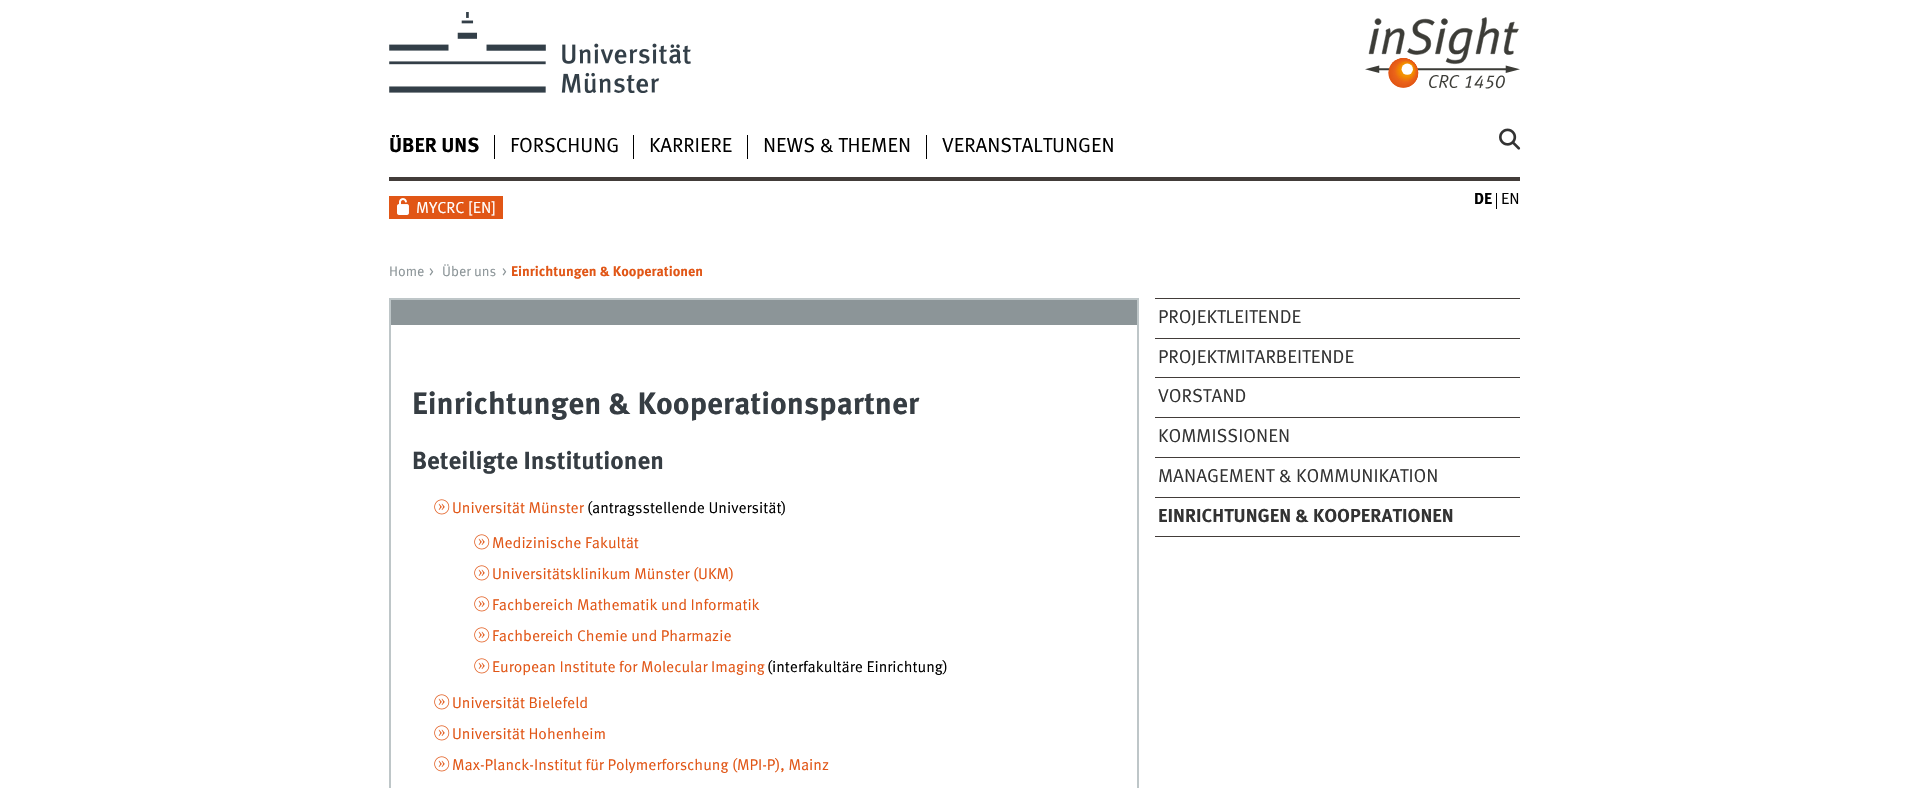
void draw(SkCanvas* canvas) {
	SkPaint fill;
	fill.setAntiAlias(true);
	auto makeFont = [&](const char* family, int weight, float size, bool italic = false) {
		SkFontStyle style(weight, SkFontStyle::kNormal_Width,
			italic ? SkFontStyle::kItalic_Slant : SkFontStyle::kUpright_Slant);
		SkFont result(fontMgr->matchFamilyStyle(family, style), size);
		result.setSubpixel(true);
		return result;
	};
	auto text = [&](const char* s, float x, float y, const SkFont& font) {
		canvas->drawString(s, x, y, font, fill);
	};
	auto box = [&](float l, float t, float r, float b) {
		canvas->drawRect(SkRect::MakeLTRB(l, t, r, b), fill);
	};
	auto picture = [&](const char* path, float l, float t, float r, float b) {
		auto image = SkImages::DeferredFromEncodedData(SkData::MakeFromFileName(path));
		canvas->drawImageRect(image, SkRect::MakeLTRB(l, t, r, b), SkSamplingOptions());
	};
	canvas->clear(0xFFFFFFFF);
	picture("image0.png", 389, 12, 691, 93);
	picture("image1.png", 1365, 17, 1520, 89);
	fill.setColor(0xFF423C39);
	box(389, 177, 1520, 181);
	fill.setColor(0xFF000000);
	box(494, 135, 495, 159);
	box(633, 135, 634, 159);
	box(747, 135, 748, 159);
	box(926, 135, 927, 159);
	picture("image2.png", 1499, 128, 1521, 150);
	box(1496, 193, 1497, 209);
	fill.setColor(0xFFE15616);
	box(389, 196, 503, 219);
	picture("image3.png", 397, 198, 409, 215);
	fill.setStyle(SkPaint::kStroke_Style);
	fill.setStrokeWidth(2);
	fill.setColor(0xFFBEC6C8);
	canvas->drawRect(SkRect::MakeLTRB(390, 299, 1138, 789), fill);
	fill.setStyle(SkPaint::kFill_Style);
	fill.setColor(0xFF8C9598);
	box(391, 300, 1137, 325);
	picture("image4.png", 434, 499, 450, 515);
	picture("image4.png", 474, 534, 490, 550);
	picture("image4.png", 474, 565, 490, 581);
	picture("image4.png", 474, 596, 490, 612);
	picture("image4.png", 474, 627, 490, 643);
	picture("image4.png", 474, 658, 490, 674);
	picture("image4.png", 434, 694, 450, 710);
	picture("image4.png", 434, 725, 450, 741);
	picture("image4.png", 434, 756, 450, 772);
	fill.setColor(0xFF423C39);
	box(1155, 298, 1520, 299);
	box(1155, 338, 1520, 339);
	box(1155, 377, 1520, 378);
	box(1155, 417, 1520, 418);
	box(1155, 457, 1520, 458);
	box(1155, 497, 1520, 498);
	box(1155, 536, 1520, 537);
	canvas->save();
	canvas->clipRect(SkRect::MakeLTRB(389, 135, 494, 159));
	auto font1 = makeFont("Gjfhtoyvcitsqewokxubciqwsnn", 700, 20.25f);
	fill.setColor(0xFF000000);
	text("ÜBER UNS", 389, 152, font1);
	canvas->restore();
	auto font2 = makeFont("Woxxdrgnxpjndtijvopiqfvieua", 400, 20.25f);
	text("FORSCHUNG", 510, 152, font2);
	text("KARRIERE", 649, 152, font2);
	text("NEWS & THEMEN", 763, 152, font2);
	text("VERANSTALTUNGEN", 942, 152, font2);
	canvas->save();
	canvas->clipRect(SkRect::MakeLTRB(1470, 193, 1520, 209));
	auto font3 = makeFont("Gjfhtoyvcitsqewokxubciqwsnn", 700, 16);
	text("DE", 1474, 204, font3);
	canvas->restore();
	auto font4 = makeFont("Woxxdrgnxpjndtijvopiqfvieua", 400, 16);
	text("EN", 1501, 204, font4);
	fill.setColor(0xFFFFFFFF);
	text("MYCRC [EN]", 416, 213, font4);
	auto font5 = makeFont("Woxxdrgnxpjndtijvopiqfvieua", 400, 14);
	fill.setColor(0xFF8C9598);
	text("Home", 389, 276, font5);
	text(">", 429, 276, font5);
	text("Über uns", 442, 276, font5);
	text(">", 502, 276, font5);
	auto font6 = makeFont("Gjfhtoyvcitsqewokxubciqwsnn", 700, 14);
	fill.setColor(0xFFE15616);
	text("Einrichtungen & Kooperationen", 511, 276, font6);
	auto font7 = makeFont("Gjfhtoyvcitsqewokxubciqwsnn", 700, 31);
	fill.setColor(0xFF363D43);
	text("Einrichtungen & Kooperationspartner", 412, 414, font7);
	auto font8 = makeFont("Gjfhtoyvcitsqewokxubciqwsnn", 700, 24.75f);
	text("Beteiligte Institutionen", 412, 469, font8);
	auto font9 = makeFont("Woxxdrgnxpjndtijvopiqfvieua", 400, 15.5f);
	fill.setColor(0xFFE15616);
	text("Universität Münster", 452, 513, font9);
	fill.setColor(0xFF000000);
	text("(antragsstellende Universität)", 587, 513, font9);
	fill.setColor(0xFFE15616);
	text("Medizinische Fakultät", 492, 548, font9);
	text("Universitätsklinikum Münster (UKM)", 492, 579, font9);
	text("Fachbereich Mathematik und Informatik", 492, 610, font9);
	text("Fachbereich Chemie und Pharmazie", 492, 641, font9);
	text("European Institute for Molecular Imaging", 492, 672, font9);
	fill.setColor(0xFF000000);
	text("(interfakultäre Einrichtung)", 767, 672, font9);
	fill.setColor(0xFFE15616);
	text("Universität Bielefeld", 452, 708, font9);
	text("Universität Hohenheim", 452, 739, font9);
	text("Max-Planck-Institut für Polymerforschung (MPI-P), Mainz", 452, 770, font9);
	auto font10 = makeFont("Woxxdrgnxpjndtijvopiqfvieua", 400, 18.75f);
	fill.setColor(0xFF333333);
	text("PROJEKTLEITENDE", 1158, 323, font10);
	text("PROJEKTMITARBEITENDE", 1158, 363, font10);
	text("VORSTAND", 1158, 402, font10);
	text("KOMMISSIONEN", 1158, 442, font10);
	text("MANAGEMENT & KOMMUNIKATION", 1158, 482, font10);
	auto font11 = makeFont("Gjfhtoyvcitsqewokxubciqwsnn", 700, 18.75f);
	text("EINRICHTUNGEN & KOOPERATIONEN", 1158, 522, font11);
}
